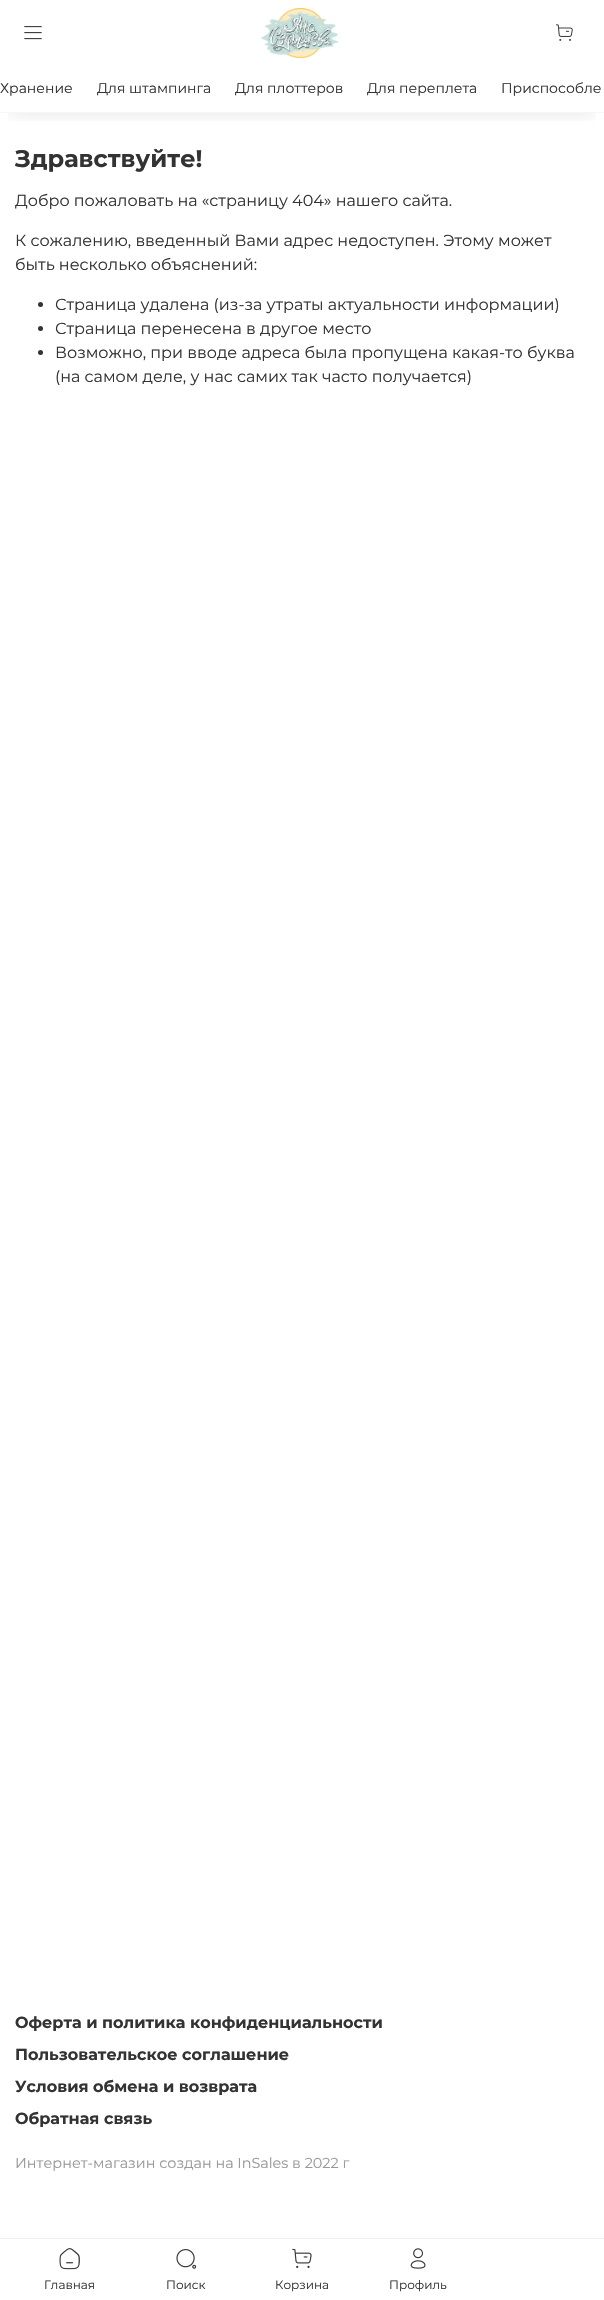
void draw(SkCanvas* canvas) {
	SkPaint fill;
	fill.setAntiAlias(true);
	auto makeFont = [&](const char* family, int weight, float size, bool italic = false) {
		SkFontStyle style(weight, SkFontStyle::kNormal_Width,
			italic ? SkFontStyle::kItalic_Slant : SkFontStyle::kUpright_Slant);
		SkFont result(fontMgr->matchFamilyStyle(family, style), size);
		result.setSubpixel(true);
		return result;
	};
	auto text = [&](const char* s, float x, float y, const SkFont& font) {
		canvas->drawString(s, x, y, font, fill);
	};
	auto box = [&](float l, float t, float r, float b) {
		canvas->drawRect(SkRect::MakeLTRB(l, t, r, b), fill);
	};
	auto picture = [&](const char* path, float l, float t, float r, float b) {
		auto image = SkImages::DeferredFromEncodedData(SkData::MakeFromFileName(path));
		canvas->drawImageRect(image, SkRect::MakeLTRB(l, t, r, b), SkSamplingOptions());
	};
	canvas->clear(0xFFFFFFFF);
	picture("image0.png", 24, 26, 42, 40);
	picture("image1.png", 261, 8, 338, 58);
	picture("image2.png", 556, 24, 573, 41);
	canvas->save();
	canvas->clipRect(SkRect::MakeLTRB(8, 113, 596, 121));
	fill.setColor(0x1A000000);
	fill.setMaskFilter(SkMaskFilter::MakeBlur(kNormal_SkBlurStyle, 10));
	canvas->drawRect(SkRect::MakeLTRB(10, 86, 594, 113), fill);
	fill.setMaskFilter(nullptr);
	canvas->restore();
	fill.setColor(0xFFF7F7F7);
	box(0, 112, 604, 113);
	fill.setColor(0xFF333333);
	canvas->drawCircle(40.5f, 304.5f, 2.5f, fill);
	canvas->drawCircle(40.5f, 328.5f, 2.5f, fill);
	canvas->drawCircle(40.5f, 352.5f, 2.5f, fill);
	fill.setColor(0xFFEDEDED);
	box(0, 2238, 604, 2239);
	picture("image3.png", 59, 2248, 80, 2270);
	picture("image4.png", 176, 2249, 197, 2269);
	picture("image5.png", 292, 2248, 312, 2268);
	picture("image6.png", 410, 2248, 426, 2269);
	auto font1 = makeFont("Montserrat", 400, 14);
	fill.setColor(0xFF333333);
	text("Хранение", 0, 93, font1);
	text("Для штампинга", 97, 93, font1);
	text("Для плоттеров", 235, 93, font1);
	text("Для переплета", 367, 93, font1);
	text("Приспособле", 501, 93, font1);
	auto font2 = makeFont("Montserrat", 700, 24);
	text("Здравствуйте!", 15, 167, font2);
	auto font3 = makeFont("Montserrat", 400, 16);
	text("Добро пожаловать на «страницу 404» нашего сайта.", 15, 206, font3);
	text("К сожалению, введенный Вами адрес недоступен. Этому может", 15, 246, font3);
	text("быть несколько объяснений:", 15, 270, font3);
	text("Страница удалена (из-за утраты актуальности информации)", 55, 310, font3);
	text("Страница перенесена в другое место", 55, 334, font3);
	text("Возможно, при вводе адреса была пропущена какая-то буква", 55, 358, font3);
	text("(на самом деле, у нас самих так часто получается)", 55, 382, font3);
	auto font4 = makeFont("Montserrat", 700, 16);
	text("Оферта и политика конфиденциальности", 15, 2028, font4);
	text("Пользовательское соглашение", 15, 2060, font4);
	text("Условия обмена и возврата", 15, 2092, font4);
	text("Обратная связь", 15, 2124, font4);
	auto font5 = makeFont("Montserrat", 400, 14.4f);
	fill.setColor(0xFF999999);
	text("Интернет-магазин создан на InSales в 2022 г", 15, 2168, font5);
	auto font6 = makeFont("Montserrat", 400, 12);
	fill.setColor(0xFF333333);
	text("Главная", 44, 2289, font6);
	text("Поиск", 166, 2289, font6);
	text("Корзина", 275, 2289, font6);
	text("Профиль", 389, 2289, font6);
}
